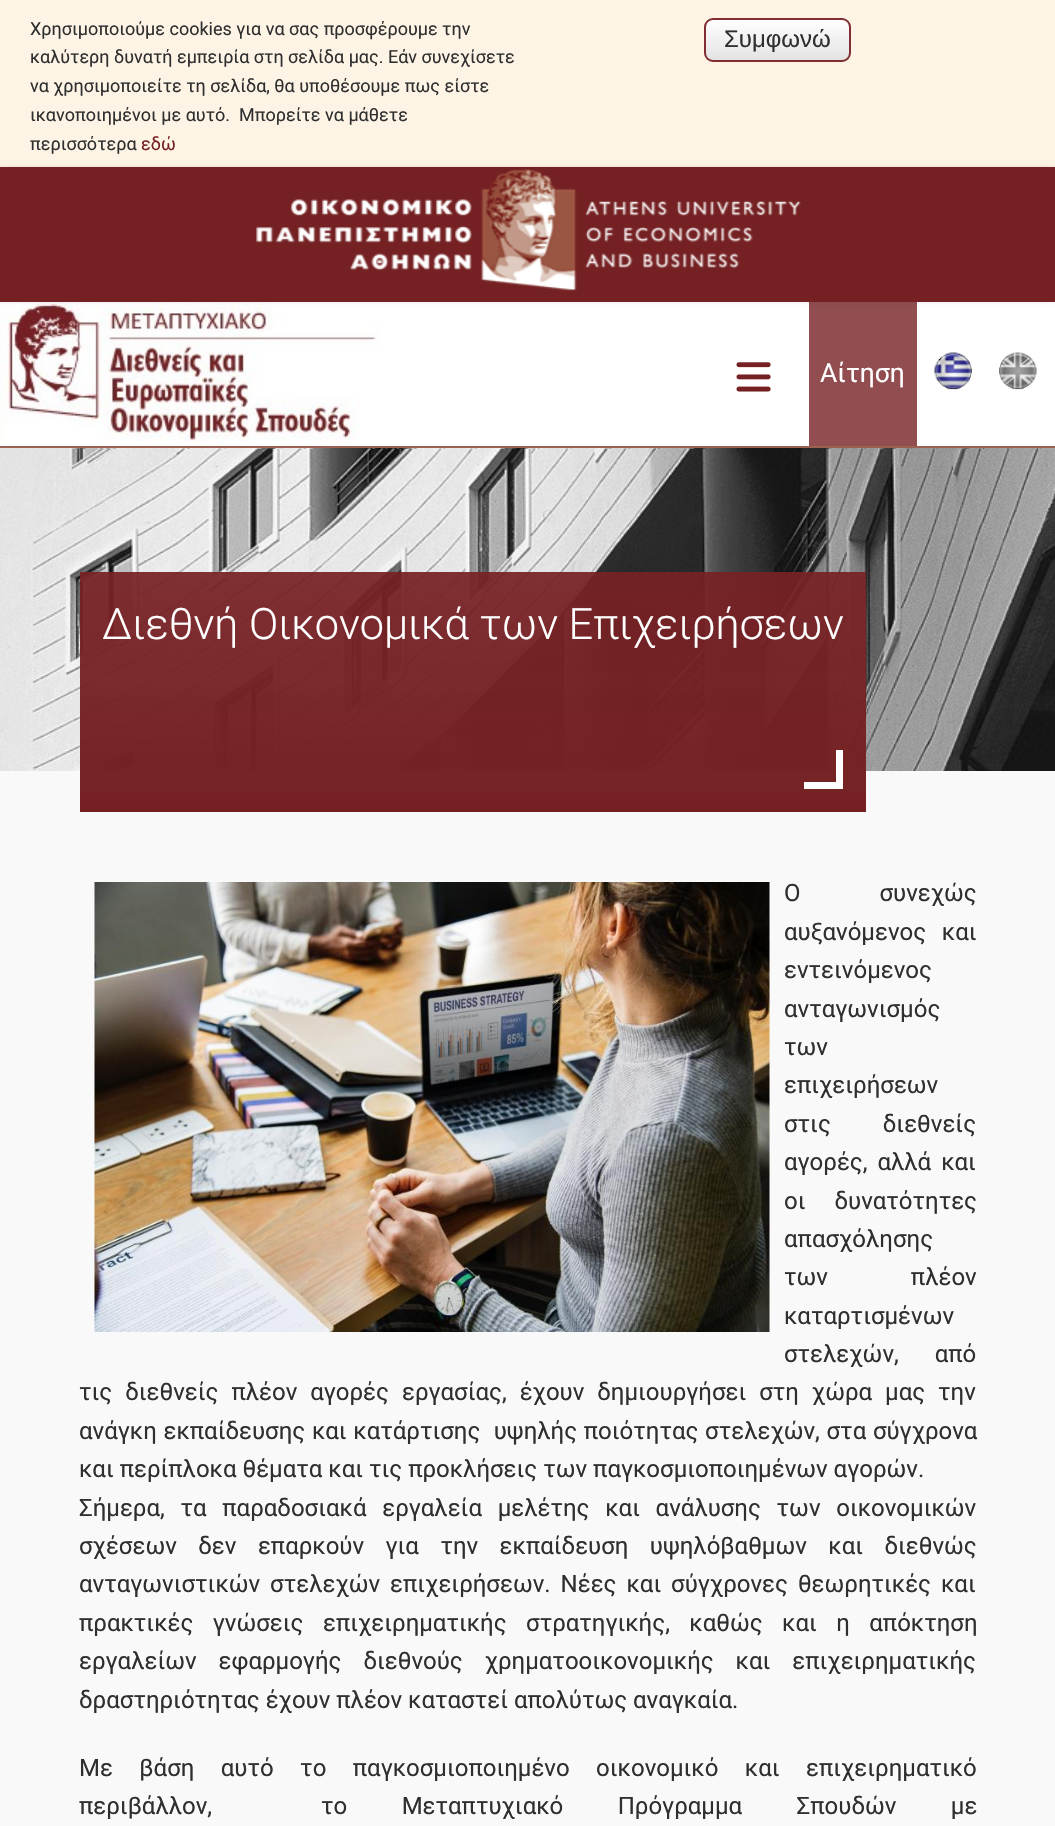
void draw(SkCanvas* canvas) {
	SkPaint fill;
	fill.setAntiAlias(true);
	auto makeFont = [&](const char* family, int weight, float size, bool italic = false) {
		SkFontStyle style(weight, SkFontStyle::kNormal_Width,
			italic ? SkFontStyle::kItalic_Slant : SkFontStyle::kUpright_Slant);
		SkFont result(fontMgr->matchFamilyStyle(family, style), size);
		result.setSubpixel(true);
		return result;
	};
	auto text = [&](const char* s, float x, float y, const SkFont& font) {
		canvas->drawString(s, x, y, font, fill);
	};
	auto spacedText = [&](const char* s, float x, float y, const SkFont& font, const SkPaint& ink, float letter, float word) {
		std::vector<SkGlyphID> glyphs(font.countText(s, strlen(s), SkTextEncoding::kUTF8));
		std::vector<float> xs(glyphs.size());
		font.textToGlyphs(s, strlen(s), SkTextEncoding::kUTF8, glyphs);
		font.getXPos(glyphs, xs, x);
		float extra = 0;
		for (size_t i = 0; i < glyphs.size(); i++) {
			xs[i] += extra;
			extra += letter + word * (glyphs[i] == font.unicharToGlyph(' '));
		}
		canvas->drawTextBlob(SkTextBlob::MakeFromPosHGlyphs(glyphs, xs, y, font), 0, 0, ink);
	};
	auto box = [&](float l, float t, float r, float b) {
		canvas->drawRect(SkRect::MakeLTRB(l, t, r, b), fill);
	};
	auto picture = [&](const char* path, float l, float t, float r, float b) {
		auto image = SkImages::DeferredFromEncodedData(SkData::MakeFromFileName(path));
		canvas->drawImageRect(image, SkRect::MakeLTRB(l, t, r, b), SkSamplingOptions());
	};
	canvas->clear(0xFFF9F9F9);
	fill.setColor(0xFFFDF4E6);
	box(0, 0, 1055, 167);
	canvas->save();
	canvas->clipPath(SkPathBuilder().moveTo(713, 18).lineTo(842, 18).cubicTo(847, 18, 851, 22, 851, 27).lineTo(851, 53).cubicTo(851, 58, 847, 62, 842, 62).lineTo(713, 62).cubicTo(708, 62, 704, 58, 704, 53).lineTo(704, 27).cubicTo(704, 22, 708, 18, 713, 18).close().detach(), true);
	{
		const SkColor colors[] = {0xFFFFFFFF, 0xFFE3E3E3};
		const float stops[] = {0, 1};
		const SkPoint ends[] = {{777, 19}, {777, 60}};
		fill.setShader(SkGradientShader::MakeLinear(ends, colors, stops, 2, SkTileMode::kClamp));
		fill.setAlpha(255);
	}
	box(704, 20, 851, 60);
	canvas->restore();
	fill.setStyle(SkPaint::kStroke_Style);
	fill.setStrokeWidth(2);
	fill.setShader(nullptr);
	fill.setColor(0xFF812D31);
	canvas->drawRoundRect(SkRect::MakeLTRB(705, 19, 850, 61), 8, 8, fill);
	fill.setStyle(SkPaint::kFill_Style);
	fill.setColor(0xFFFFFFFF);
	box(0, 302, 1055, 446);
	picture("image1.png", 0, 302, 380, 444);
	fill.setColor(0xFF914D50);
	box(809, 302, 917, 446);
	fill.setColor(0x1A000000);
	fill.setMaskFilter(SkMaskFilter::MakeBlur(kNormal_SkBlurStyle, 2));
	canvas->drawRect(SkRect::MakeLTRB(0, 167, 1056, 302), fill);
	fill.setMaskFilter(nullptr);
	fill.setColor(0xFF752123);
	box(0, 167, 1055, 302);
	picture("image0.png", 256, 169, 801, 291);
	fill.setColor(0xFF9A6052);
	box(0, 446, 1055, 448);
	picture("image2.png", 736, 362, 771, 392);
	picture("image3.png", 934, 352, 972, 390);
	picture("image4.png", 999, 352, 1037, 390);
	picture("image5.png", 0, 448, 1055, 771);
	{
		const SkColor colors[] = {0xED762124, 0xFF752123};
		const float stops[] = {0, 1};
		const SkPoint ends[] = {{473, 572}, {473, 812}};
		fill.setShader(SkGradientShader::MakeLinear(ends, colors, stops, 2, SkTileMode::kClamp));
		fill.setAlpha(255);
	}
	box(80, 572, 866, 812);
	fill.setShader(nullptr);
	fill.setColor(0xFFFFFFFF);
	box(836, 750, 843, 789);
	box(804, 782, 843, 789);
	picture("image6.png", 94, 882, 770, 1332);
	auto font1 = makeFont("Roboto", 400, 18);
	fill.setColor(0xFF2F2F2F);
	text("Χρησιμοποιούμε cookies για να σας προσφέρουμε την", 30, 35, font1);
	text("καλύτερη δυνατή εμπειρία στη σελίδα μας. Εάν συνεχίσετε", 30, 63, font1);
	text("να χρησιμοποιείτε τη σελίδα, θα υποθέσουμε πως είστε", 30, 92, font1);
	text("ικανοποιημένοι με αυτό.", 30, 121, font1);
	text("Μπορείτε να μάθετε", 239, 121, font1);
	text("περισσότερα", 30, 150, font1);
	fill.setColor(0xFF752123);
	text("εδώ", 141, 150, font1);
	auto font2 = makeFont("Liberation Sans", 400, 24);
	fill.setColor(0xFF2F2F2F);
	text("Συμφωνώ", 724, 47, font2);
	auto font3 = makeFont("Roboto", 400, 26.5f);
	fill.setColor(0xFFFFFFFF);
	text("Αίτηση", 820, 382, font3);
	auto font4 = makeFont("Roboto", 300, 43.25f);
	text("Διεθνή Οικονομικά των Επιχειρήσεων", 102, 639, font4);
	auto font5 = makeFont("Roboto", 400, 24);
	fill.setColor(0xFF2F2F2F);
	spacedText("Ο συνεχώς", 784, 901, font5, fill, 0, 73);
	spacedText("αυξανόμενος και", 784, 940, font5, fill, 0, 9.75f);
	text("εντεινόμενος", 784, 978, font5);
	text("ανταγωνισμός", 784, 1017, font5);
	text("των", 784, 1055, font5);
	text("επιχειρήσεων", 784, 1093, font5);
	spacedText("στις διεθνείς", 784, 1132, font5, fill, 0, 46);
	spacedText("αγορές, αλλά και", 784, 1170, font5, fill, 0, 4);
	spacedText("οι δυνατότητες", 784, 1209, font5, fill, 0, 23);
	text("απασχόλησης", 784, 1247, font5);
	spacedText("των πλέον", 784, 1285, font5, fill, 0, 77);
	text("καταρτισμένων", 784, 1324, font5);
	spacedText("στελεχών, από", 784, 1362, font5, fill, 0, 30);
	spacedText("τις διεθνείς πλέον αγορές εργασίας, έχουν δημιουργήσει στη χώρα μας την", 79, 1400, font5, fill, 0, 7);
	spacedText("ανάγκη εκπαίδευσης και κατάρτισης  υψηλής ποιότητας στελεχών, στα σύγχρονα", 79, 1439, font5, fill, 0, 0.75f);
	text("και περίπλοκα θέματα και τις προκλήσεις των παγκοσμιοποιημένων αγορών.", 79, 1477, font5);
	spacedText("Σήμερα, τα παραδοσιακά εργαλεία μελέτης και ανάλυσης των οικονομικών", 79, 1516, font5, fill, 0, 9.75f);
	spacedText("σχέσεων δεν επαρκούν για την εκπαίδευση υψηλόβαθμων και διεθνώς", 79, 1554, font5, fill, 0, 15.5f);
	spacedText("ανταγωνιστικών στελεχών επιχειρήσεων. Νέες και σύγχρονες θεωρητικές και", 79, 1592, font5, fill, 0, 4);
	spacedText("πρακτικές γνώσεις επιχειρηματικής στρατηγικής, καθώς και η απόκτηση", 79, 1631, font5, fill, 0, 13.5f);
	spacedText("εργαλείων εφαρμογής διεθνούς χρηματοοικονομικής και επιχειρηματικής", 79, 1669, font5, fill, 0, 16);
	text("δραστηριότητας έχουν πλέον καταστεί απολύτως αναγκαία.", 79, 1708, font5);
	spacedText("Με βάση αυτό το παγκοσμιοποιημένο οικονομικό και επιχειρηματικό", 79, 1776, font5, fill, 0, 20.5f);
	spacedText("περιβάλλον,  το Μεταπτυχιακό Πρόγραμμα Σπουδών με", 79, 1814, font5, fill, 0, 48.5f);
}
